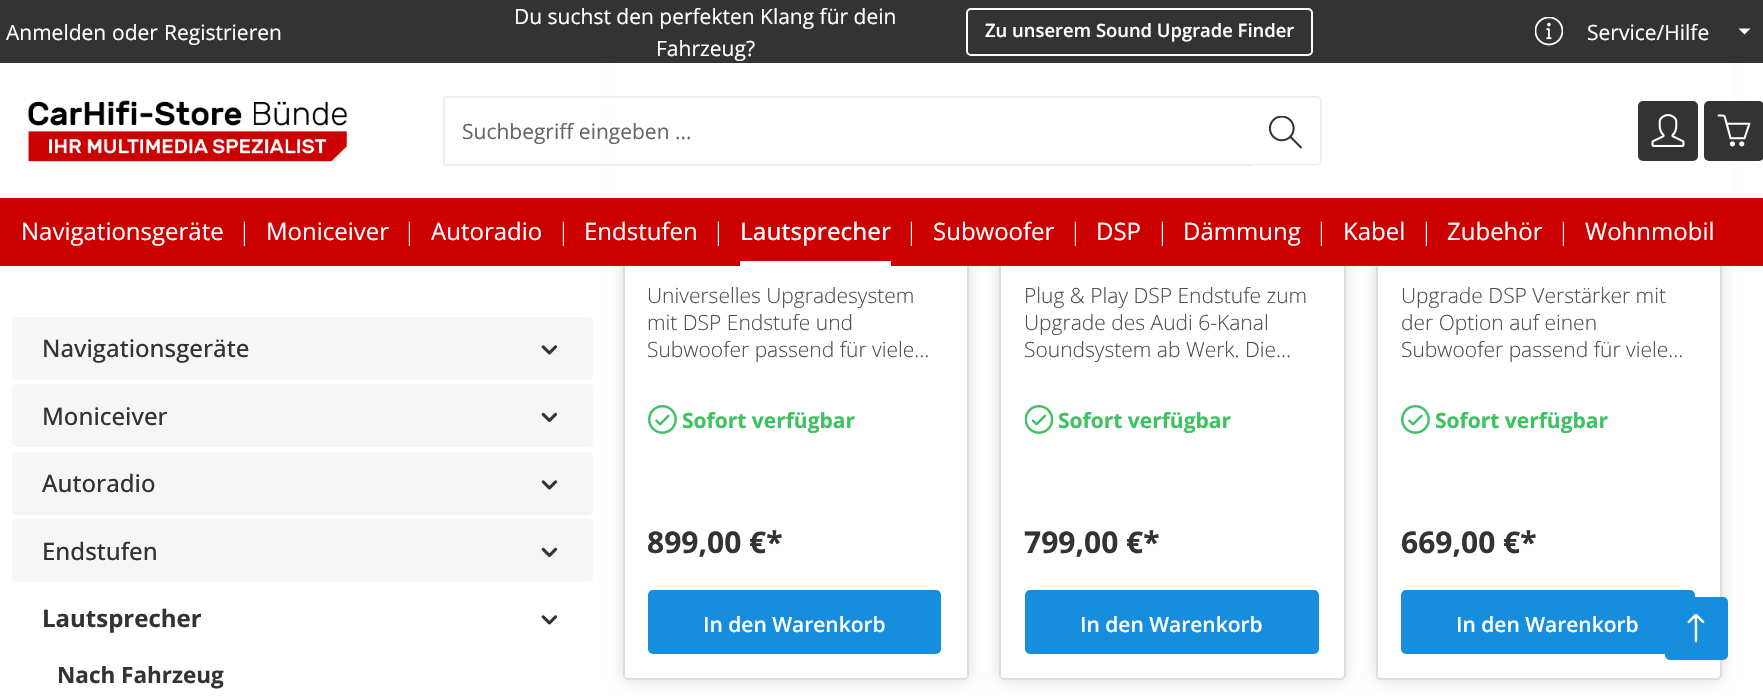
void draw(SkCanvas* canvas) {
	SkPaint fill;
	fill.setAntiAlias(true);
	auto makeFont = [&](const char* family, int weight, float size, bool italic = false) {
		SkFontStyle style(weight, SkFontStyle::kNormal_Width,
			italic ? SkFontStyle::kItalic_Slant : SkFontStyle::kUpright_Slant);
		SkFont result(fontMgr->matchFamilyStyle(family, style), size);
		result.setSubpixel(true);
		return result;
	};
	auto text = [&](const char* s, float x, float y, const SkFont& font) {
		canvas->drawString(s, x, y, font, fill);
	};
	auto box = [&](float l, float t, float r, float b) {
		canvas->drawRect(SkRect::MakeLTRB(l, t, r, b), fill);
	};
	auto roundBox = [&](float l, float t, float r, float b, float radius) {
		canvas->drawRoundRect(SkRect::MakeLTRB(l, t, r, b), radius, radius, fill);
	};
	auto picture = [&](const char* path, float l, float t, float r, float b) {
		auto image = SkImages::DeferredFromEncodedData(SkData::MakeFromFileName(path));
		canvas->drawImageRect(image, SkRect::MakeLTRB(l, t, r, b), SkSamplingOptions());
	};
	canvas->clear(0xFFFFFFFF);
	fill.setColor(0xFFDDDDDD);
	fill.setMaskFilter(SkMaskFilter::MakeBlur(kNormal_SkBlurStyle, 7.5f));
	canvas->drawRoundRect(SkRect::MakeLTRB(623, -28, 969, 680), 5, 5, fill);
	fill.setMaskFilter(nullptr);
	fill.setColor(0xFFFFFFFF);
	canvas->drawRoundRect(SkRect::MakeLTRB(624, -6, 968, 679), 4, 4, fill);
	fill.setStyle(SkPaint::kStroke_Style);
	fill.setStrokeWidth(2);
	fill.setColor(0xFFDDDDDD);
	canvas->drawRoundRect(SkRect::MakeLTRB(624, -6, 968, 679), 4, 4, fill);
	fill.setStyle(SkPaint::kFill_Style);
	fill.setMaskFilter(SkMaskFilter::MakeBlur(kNormal_SkBlurStyle, 7.5f));
	canvas->drawRoundRect(SkRect::MakeLTRB(999, -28, 1346, 680), 5, 5, fill);
	fill.setMaskFilter(nullptr);
	fill.setColor(0xFFFFFFFF);
	canvas->drawRoundRect(SkRect::MakeLTRB(1000, -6, 1345, 679), 4, 4, fill);
	fill.setStyle(SkPaint::kStroke_Style);
	fill.setColor(0xFFDDDDDD);
	canvas->drawRoundRect(SkRect::MakeLTRB(1000, -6, 1345, 679), 4, 4, fill);
	fill.setStyle(SkPaint::kFill_Style);
	fill.setMaskFilter(SkMaskFilter::MakeBlur(kNormal_SkBlurStyle, 7.5f));
	canvas->drawRoundRect(SkRect::MakeLTRB(1376, -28, 1722, 680), 5, 5, fill);
	fill.setMaskFilter(nullptr);
	fill.setColor(0xFFFFFFFF);
	canvas->drawRoundRect(SkRect::MakeLTRB(1377, -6, 1721, 679), 4, 4, fill);
	fill.setStyle(SkPaint::kStroke_Style);
	fill.setColor(0xFFDDDDDD);
	canvas->drawRoundRect(SkRect::MakeLTRB(1377, -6, 1721, 679), 4, 4, fill);
	fill.setStyle(SkPaint::kFill_Style);
	fill.setColor(0xFF333333);
	box(0, 0, 1763, 63);
	fill.setStyle(SkPaint::kStroke_Style);
	fill.setColor(0xFFFFFFFF);
	canvas->drawRoundRect(SkRect::MakeLTRB(967, 9, 1312, 55), 4, 4, fill);
	picture("image0.png", 1535, 17, 1563, 46);
	fill.setStyle(SkPaint::kFill_Style);
	canvas->drawPath(SkPathBuilder().moveTo(1738.5f, 28.5f).lineTo(1750.5f, 28.5f).lineTo(1744.5f, 34.5f).close().detach(), fill);
	box(612, 63, 1733, 198);
	picture("image1.png", 28, 100, 348, 162);
	fill.setColor(0xFFEEEEEE);
	box(444, 96, 1253, 98);
	box(444, 164, 1253, 166);
	box(443, 98, 445, 164);
	fill.setColor(0xFFFFFFFF);
	canvas->drawPath(SkPathBuilder().moveTo(1251, 96).lineTo(1317, 96).cubicTo(1320, 96, 1322, 98, 1322, 101).lineTo(1322, 160).cubicTo(1322, 163, 1320, 165, 1317, 165).lineTo(1251, 165).close().detach(), fill);
	fill.setColor(0xFFEEEEEE);
	canvas->drawPath(SkPathBuilder(SkPathFillType::kEvenOdd).moveTo(1251, 96).lineTo(1317, 96).cubicTo(1319, 96, 1322, 98, 1322, 100).lineTo(1322, 160).cubicTo(1322, 163, 1319, 165, 1317, 165).lineTo(1251, 165).close().moveTo(1251, 98).lineTo(1317, 98).cubicTo(1319, 98, 1320, 99, 1320, 100).lineTo(1320, 160).cubicTo(1320, 162, 1319, 164, 1317, 164).lineTo(1251, 164).close().detach(), fill);
	picture("image2.png", 1269, 116, 1302, 149);
	fill.setColor(0xFF333333);
	roundBox(1638, 101, 1698, 161, 5);
	picture("image3.png", 1651, 114, 1685, 147);
	roundBox(1704, 101, 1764, 161, 5);
	picture("image4.png", 1717, 114, 1751, 147);
	fill.setColor(0xFFCC0001);
	box(0, 198, 1763, 266);
	fill.setColor(0xFFFFFFFF);
	box(740, 261, 891, 266);
	fill.setColor(0xFFF6F6F6);
	roundBox(12, 317, 593, 380, 5);
	picture("image5.png", 541, 345, 558, 355);
	roundBox(12, 384, 593, 447, 5);
	picture("image6.png", 541, 412, 558, 422);
	roundBox(12, 452, 593, 515, 5);
	picture("image5.png", 541, 480, 558, 490);
	roundBox(12, 519, 593, 582, 5);
	picture("image6.png", 541, 547, 558, 557);
	picture("image7.png", 541, 615, 558, 625);
	picture("image8.png", 648, 405, 677, 434);
	fill.setColor(0xFF168DDD);
	canvas->drawRoundRect(SkRect::MakeLTRB(649, 591, 940, 653), 4, 4, fill);
	fill.setStyle(SkPaint::kStroke_Style);
	canvas->drawRoundRect(SkRect::MakeLTRB(649, 591, 940, 653), 4, 4, fill);
	picture("image9.png", 1025, 405, 1053, 434);
	fill.setStyle(SkPaint::kFill_Style);
	canvas->drawRoundRect(SkRect::MakeLTRB(1026, 591, 1318, 653), 4, 4, fill);
	fill.setStyle(SkPaint::kStroke_Style);
	canvas->drawRoundRect(SkRect::MakeLTRB(1026, 591, 1318, 653), 4, 4, fill);
	picture("image8.png", 1401, 405, 1430, 434);
	fill.setStyle(SkPaint::kFill_Style);
	canvas->drawRoundRect(SkRect::MakeLTRB(1402, 591, 1694, 653), 4, 4, fill);
	fill.setStyle(SkPaint::kStroke_Style);
	canvas->drawRoundRect(SkRect::MakeLTRB(1402, 591, 1694, 653), 4, 4, fill);
	fill.setStyle(SkPaint::kFill_Style);
	canvas->drawRoundRect(SkRect::MakeLTRB(1666, 598, 1727, 659), 4, 4, fill);
	fill.setStyle(SkPaint::kStroke_Style);
	canvas->drawRoundRect(SkRect::MakeLTRB(1666, 598, 1727, 659), 4, 4, fill);
	picture("image10.png", 1687, 614, 1705, 643);
	auto font1 = makeFont("Open Sans", 400, 21);
	fill.setStyle(SkPaint::kFill_Style);
	fill.setColor(0xFFFFFFFF);
	text("Anmelden", 6, 40, font1);
	text("oder", 112, 40, font1);
	text("Registrieren", 164, 40, font1);
	text("Du suchst den perfekten Klang für dein", 514, 24, font1);
	text("Fahrzeug?", 656, 56, font1);
	auto font2 = makeFont("Open Sans", 600, 18.4f);
	text("Zu unserem Sound Upgrade Finder", 985, 37, font2);
	text("Service/Hilfe", 1587, 40, font1);
	fill.setColor(0xFF666666);
	text("Suchbegriff eingeben ...", 462, 139, font1);
	auto font3 = makeFont("Open Sans", 400, 24);
	fill.setColor(0xFFFFFFFF);
	text("Navigationsgeräte", 21, 240, font3);
	auto font4 = makeFont("Open Sans", 300, 24);
	text("|", 238, 240, font4);
	text("Moniceiver", 266, 240, font3);
	text("|", 403, 240, font4);
	text("Autoradio", 431, 240, font3);
	text("|", 557, 240, font4);
	text("Endstufen", 584, 240, font3);
	text("|", 712, 240, font4);
	auto font5 = makeFont("Open Sans", 500, 24);
	text("Lautsprecher", 740, 240, font5);
	text("|", 905, 240, font4);
	text("Subwoofer", 933, 240, font3);
	text("|", 1069, 240, font4);
	text("DSP", 1096, 240, font3);
	text("|", 1156, 240, font4);
	text("Dämmung", 1183, 240, font3);
	text("|", 1315, 240, font4);
	text("Kabel", 1343, 240, font3);
	text("|", 1420, 240, font4);
	text("Zubehör", 1447, 240, font3);
	text("|", 1557, 240, font4);
	text("Wohnmobil", 1585, 240, font3);
	fill.setColor(0xFF333333);
	text("Navigationsgeräte", 42, 357, font5);
	text("Moniceiver", 42, 425, font5);
	text("Autoradio", 42, 492, font5);
	text("Endstufen", 42, 560, font5);
	auto font6 = makeFont("Open Sans", 700, 24);
	text("Lautsprecher", 42, 627, font6);
	auto font7 = makeFont("Open Sans", 700, 22.5f);
	text("Nach Fahrzeug", 57, 683, font7);
	auto font8 = makeFont("Open Sans", 300, 21);
	fill.setColor(0xFF4D4D4D);
	text("Universelles Upgradesystem", 647, 303, font8);
	text("mit DSP Endstufe und", 647, 330, font8);
	text("Subwoofer passend für viele…", 647, 357, font8);
	auto font9 = makeFont("Open Sans", 700, 21);
	fill.setColor(0xFF3CC261);
	text("Sofort verfügbar", 682, 428, font9);
	auto font10 = makeFont("Open Sans", 700, 30);
	fill.setColor(0xFF333333);
	text("899,00 €*", 647, 553, font10);
	auto font11 = makeFont("Open Sans", 600, 21);
	fill.setColor(0xFFFFFFFF);
	text("In den Warenkorb", 703, 632, font11);
	fill.setColor(0xFF4D4D4D);
	text("Plug & Play DSP Endstufe zum", 1024, 303, font8);
	text("Upgrade des Audi 6-Kanal", 1024, 330, font8);
	text("Soundsystem ab Werk. Die…", 1024, 357, font8);
	fill.setColor(0xFF3CC261);
	text("Sofort verfügbar", 1058, 428, font9);
	fill.setColor(0xFF333333);
	text("799,00 €*", 1024, 553, font10);
	fill.setColor(0xFFFFFFFF);
	text("In den Warenkorb", 1080, 632, font11);
	fill.setColor(0xFF4D4D4D);
	text("Upgrade DSP Verstärker mit", 1401, 303, font8);
	text("der Option auf einen", 1401, 330, font8);
	text("Subwoofer passend für viele…", 1401, 357, font8);
	fill.setColor(0xFF3CC261);
	text("Sofort verfügbar", 1435, 428, font9);
	fill.setColor(0xFF333333);
	text("669,00 €*", 1401, 553, font10);
	fill.setColor(0xFFFFFFFF);
	text("In den Warenkorb", 1456, 632, font11);
}
